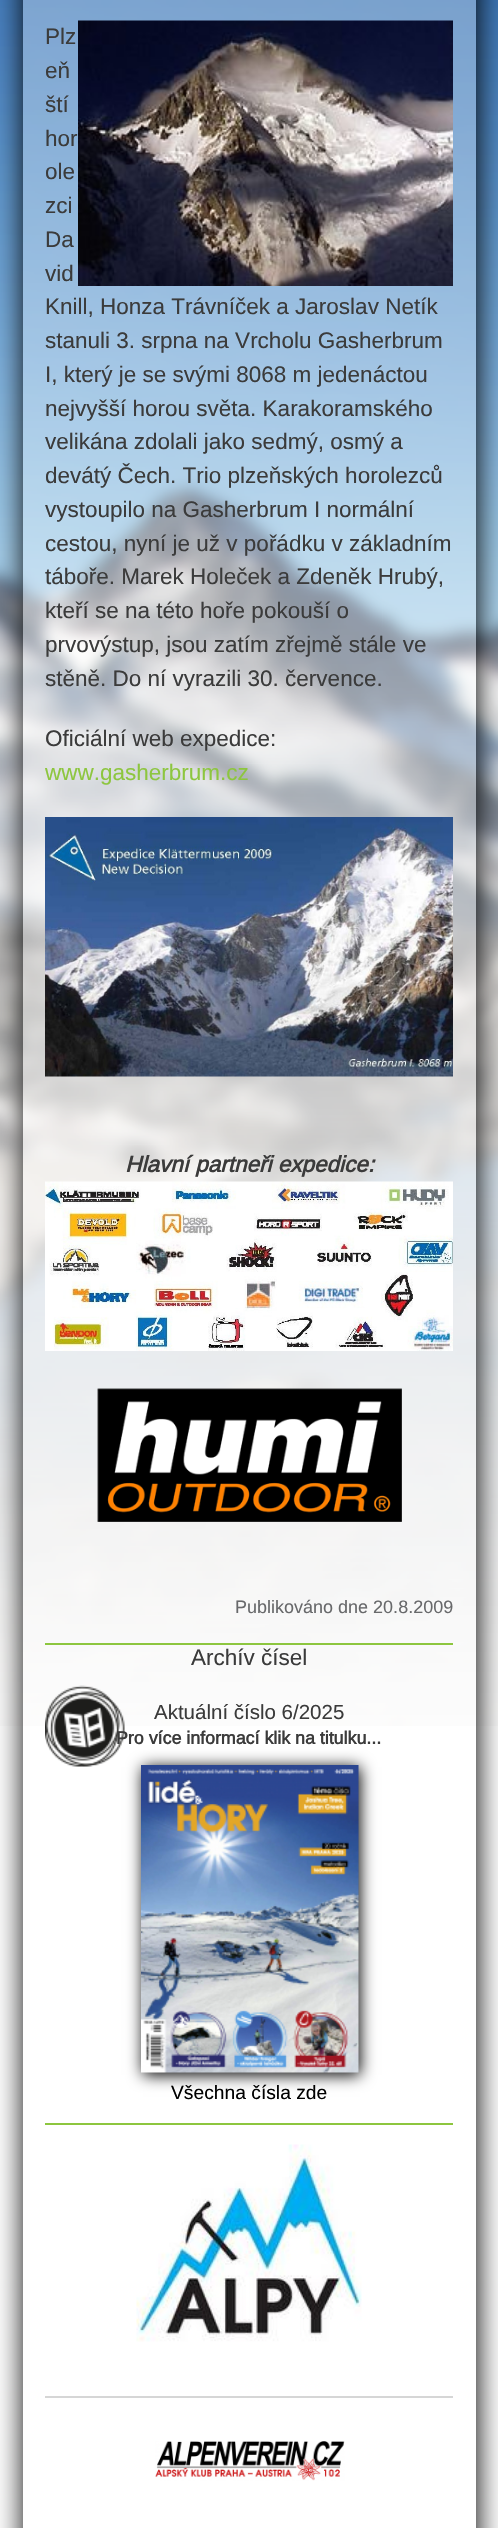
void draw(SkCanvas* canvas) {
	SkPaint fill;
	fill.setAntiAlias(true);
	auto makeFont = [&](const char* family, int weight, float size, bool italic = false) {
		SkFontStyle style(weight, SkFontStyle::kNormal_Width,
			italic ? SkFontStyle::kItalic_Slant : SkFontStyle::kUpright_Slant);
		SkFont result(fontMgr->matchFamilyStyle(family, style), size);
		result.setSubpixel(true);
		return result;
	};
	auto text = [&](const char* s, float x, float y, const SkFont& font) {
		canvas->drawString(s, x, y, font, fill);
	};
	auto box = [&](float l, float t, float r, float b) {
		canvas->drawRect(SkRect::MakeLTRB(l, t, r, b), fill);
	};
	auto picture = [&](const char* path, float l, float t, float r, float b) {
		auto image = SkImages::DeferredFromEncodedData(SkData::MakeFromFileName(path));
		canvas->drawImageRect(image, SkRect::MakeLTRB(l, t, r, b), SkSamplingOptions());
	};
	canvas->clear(0xFFFFFFFF);
	picture("image0.png", 0, 0, 498, 1726);
	canvas->save();
	canvas->clipPath(SkPathBuilder(SkPathFillType::kEvenOdd).moveTo(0, 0).lineTo(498, 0).lineTo(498, 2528).lineTo(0, 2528).close().moveTo(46, -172).lineTo(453, -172).cubicTo(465.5f, -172, 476, -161.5f, 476, -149).lineTo(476, 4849).cubicTo(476, 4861.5f, 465.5f, 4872, 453, 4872).lineTo(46, 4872).cubicTo(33.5f, 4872, 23, 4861.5f, 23, 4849).lineTo(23, -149).cubicTo(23, -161.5f, 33.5f, -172, 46, -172).close().detach(), true);
	fill.setColor(0xFF000000);
	fill.setMaskFilter(SkMaskFilter::MakeBlur(kNormal_SkBlurStyle, 15));
	canvas->drawRoundRect(SkRect::MakeLTRB(24, -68, 477, 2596), 23, 23, fill);
	fill.setMaskFilter(nullptr);
	canvas->restore();
	fill.setColor(0x4DFFFFFF);
	box(23, 0, 476, 2528);
	picture("image1.png", 78, 20, 453, 286);
	picture("image2.png", 45, 817, 453, 1077);
	picture("image3.png", 45, 1181, 453, 1351);
	picture("image4.png", 97, 1388, 402, 1522);
	fill.setColor(0xFF8DC63F);
	box(45, 1643, 453, 1645);
	box(45, 2123, 453, 2125);
	picture("image5.png", 45, 1685, 125, 1767);
	fill.setColor(0xFF000000);
	fill.setMaskFilter(SkMaskFilter::MakeBlur(kNormal_SkBlurStyle, 7.5f));
	canvas->drawRect(SkRect::MakeLTRB(143, 1767, 360, 2075), fill);
	fill.setMaskFilter(nullptr);
	picture("image6.png", 141, 1765, 359, 2073);
	fill.setColor(0xFFD6D6D6);
	box(45, 2396, 453, 2398);
	picture("image7.png", 136, 2144, 362, 2342);
	picture("image8.png", 155, 2441, 345, 2481);
	auto font1 = makeFont("Arimo", 400, 22.5f);
	fill.setColor(0xFF3B3B3B);
	text("Plz", 45, 44, font1);
	text("eň", 45, 78, font1);
	text("ští", 45, 112, font1);
	text("hor", 45, 146, font1);
	text("ole", 45, 179, font1);
	text("zci", 45, 213, font1);
	text("Da", 45, 247, font1);
	text("vid", 45, 281, font1);
	text("Knill, Honza Trávníček a Jaroslav Netík", 45, 314, font1);
	text("stanuli 3. srpna na Vrcholu Gasherbrum", 45, 348, font1);
	text("I, který je se svými 8068 m jedenáctou", 45, 382, font1);
	text("nejvyšší horou světa. Karakoramského", 45, 416, font1);
	text("velikána zdolali jako sedmý, osmý a", 45, 449, font1);
	text("devátý Čech. Trio plzeňských horolezců", 45, 483, font1);
	text("vystoupilo na Gasherbrum I normální", 45, 517, font1);
	text("cestou, nyní je už v pořádku v základním", 45, 551, font1);
	text("táboře. Marek Holeček a Zdeněk Hrubý,", 45, 584, font1);
	text("kteří se na této hoře pokouší o", 45, 618, font1);
	text("prvovýstup, jsou zatím zřejmě stále ve", 45, 652, font1);
	text("stěně. Do ní vyrazili 30. července.", 45, 686, font1);
	text("Oficiální web expedice:", 45, 746, font1);
	fill.setColor(0xFF8DC63F);
	text("www.gasherbrum.cz", 45, 780, font1);
	auto font2 = makeFont("Arimo", 700, 22.5f, true);
	fill.setColor(0xFF3B3B3B);
	text("Hlavní partneři expedice:", 125, 1172, font2);
	auto font3 = makeFont("Arimo", 400, 18);
	fill.setColor(0xFF68696B);
	text("Publikováno dne 20.8.2009", 235, 1613, font3);
	fill.setColor(0xFF3B3B3B);
	text("Archív čísel", 191, 1665, font1);
	auto font4 = makeFont("Arimo", 400, 20.5f);
	text("Aktuální číslo 6/2025", 154, 1719, font4);
	auto font5 = makeFont("Arimo", 700, 17.8f);
	text("Pro více informací klik na titulku...", 116, 1744, font5);
	auto font6 = makeFont("Arimo", 400, 19.25f);
	fill.setColor(0xFF000000);
	text("Všechna čísla zde", 171, 2099, font6);
}
